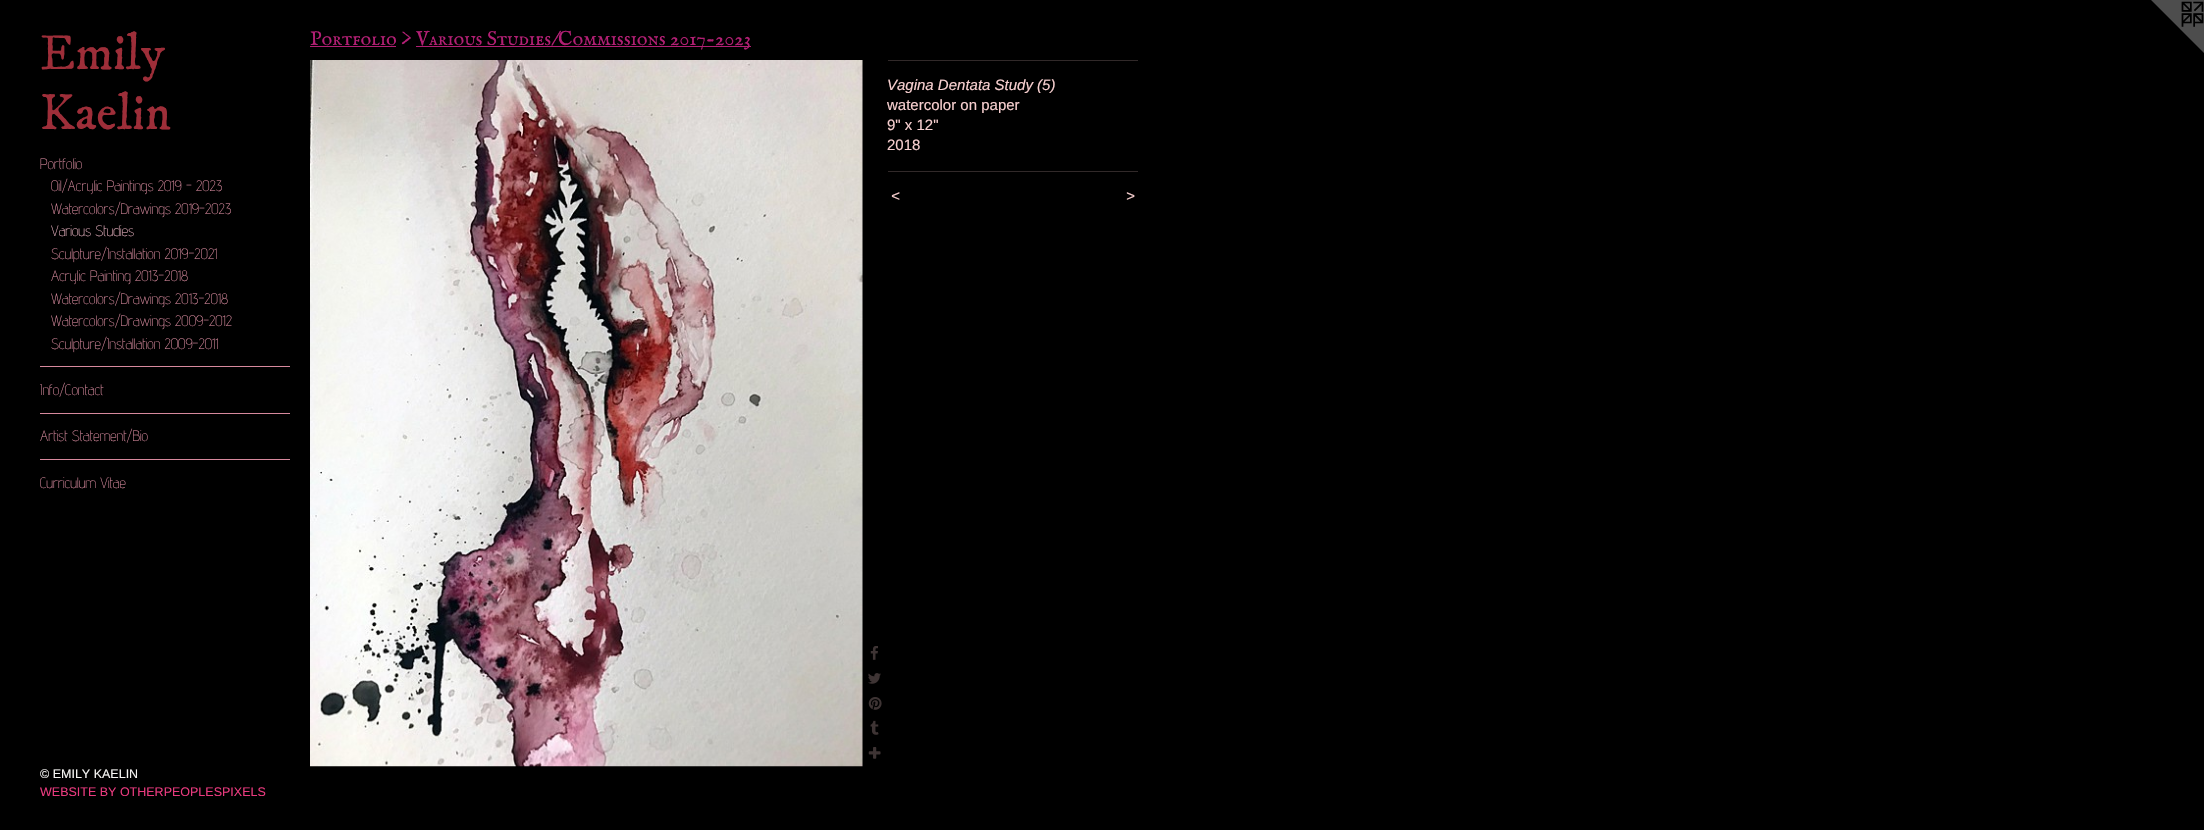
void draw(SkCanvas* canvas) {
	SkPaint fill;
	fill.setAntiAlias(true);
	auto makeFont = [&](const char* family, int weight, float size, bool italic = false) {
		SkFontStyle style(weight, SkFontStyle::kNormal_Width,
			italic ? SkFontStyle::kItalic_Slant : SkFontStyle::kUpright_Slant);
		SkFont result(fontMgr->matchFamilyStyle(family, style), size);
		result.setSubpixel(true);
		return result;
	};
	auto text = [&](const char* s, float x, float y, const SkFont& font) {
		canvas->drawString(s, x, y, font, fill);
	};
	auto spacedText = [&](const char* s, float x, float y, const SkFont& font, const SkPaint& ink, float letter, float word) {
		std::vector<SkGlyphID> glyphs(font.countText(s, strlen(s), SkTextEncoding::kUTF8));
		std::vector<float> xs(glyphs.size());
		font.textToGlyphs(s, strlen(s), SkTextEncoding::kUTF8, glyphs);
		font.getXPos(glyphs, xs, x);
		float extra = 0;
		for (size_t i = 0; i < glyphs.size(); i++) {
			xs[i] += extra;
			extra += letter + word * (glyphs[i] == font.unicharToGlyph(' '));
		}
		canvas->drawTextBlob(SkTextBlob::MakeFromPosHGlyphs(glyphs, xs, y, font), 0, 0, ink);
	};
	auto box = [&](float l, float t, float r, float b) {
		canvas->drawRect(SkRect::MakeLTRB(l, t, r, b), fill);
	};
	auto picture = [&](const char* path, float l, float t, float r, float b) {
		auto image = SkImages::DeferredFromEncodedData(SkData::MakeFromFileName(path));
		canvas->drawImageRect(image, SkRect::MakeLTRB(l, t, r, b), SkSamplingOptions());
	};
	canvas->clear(0xFF000000);
	fill.setColor(0xFFD7899D);
	box(40, 366, 290, 367);
	box(40, 413, 290, 414);
	box(40, 459, 290, 460);
	fill.setColor(0xFFB21F74);
	box(310, 46, 396, 47);
	box(416, 46, 751, 47);
	picture("image0.png", 310, 60, 863, 767);
	picture("image1.png", 870, 646, 878, 660);
	picture("image2.png", 868, 673, 881, 684);
	picture("image3.png", 868, 697, 882, 710);
	picture("image4.png", 870, 720, 879, 735);
	picture("image5.png", 868, 747, 881, 759);
	fill.setColor(0xFF312929);
	box(888, 60, 1138, 61);
	box(888, 171, 1138, 172);
	picture("image6.png", 2151, 0, 2204, 53);
	auto font1 = makeFont("IM FELL DW Pica", 400, 50);
	fill.setColor(0xFF9E2E39);
	text("Emily", 40, 69, font1);
	text("Kaelin", 40, 129, font1);
	auto font2 = makeFont("Advent Pro", 200, 15);
	fill.setColor(0xFFD7899D);
	text("Portfolio", 40, 169, font2);
	text("Oil/Acrylic Paintings 2019 - 2023", 51, 191, font2);
	text("Watercolors/Drawings 2019-2023", 51, 214, font2);
	fill.setColor(0xFFE4AFBD);
	text("Various Studies", 51, 236, font2);
	fill.setColor(0xFFD7899D);
	text("Sculpture/Installation 2019-2021", 51, 259, font2);
	text("Acrylic Painting 2013-2018", 51, 281, font2);
	text("Watercolors/Drawings 2013-2018", 51, 304, font2);
	text("Watercolors/Drawings 2009-2012", 51, 326, font2);
	text("Sculpture/Installation 2009-2011", 51, 349, font2);
	text("Info/Contact", 40, 395, font2);
	text("Artist Statement/Bio", 40, 441, font2);
	text("Curriculum Vitae", 40, 488, font2);
	auto font3 = makeFont("Liberation Sans", 400, 12.5f);
	fill.setColor(0xFFF6F5F3);
	text("© EMILY KAELIN", 40, 778, font3);
	fill.setColor(0xFFE93A7E);
	text("WEBSITE BY OTHERPEOPLESPIXELS", 40, 796, font3);
	auto font4 = makeFont("IM FELL English SC", 400, 20);
	fill.setColor(0xFFB21F74);
	text("Portfolio >", 310, 45, font4);
	text("Various Studies/Commissions 2017-2023", 416, 45, font4);
	auto font5 = makeFont("Liberation Sans", 400, 15, true);
	fill.setColor(0xFFF7CFCF);
	text("Vagina Dentata Study (5)", 887, 90, font5);
	auto font6 = makeFont("Liberation Sans", 400, 15);
	text("watercolor on paper", 887, 110, font6);
	text("9\" x 12\"", 887, 130, font6);
	text("2018", 887, 150, font6);
	spacedText("<", 891, 201, font5, fill, 1, 0);
	spacedText(">", 1126, 201, font5, fill, 1, 0);
}
